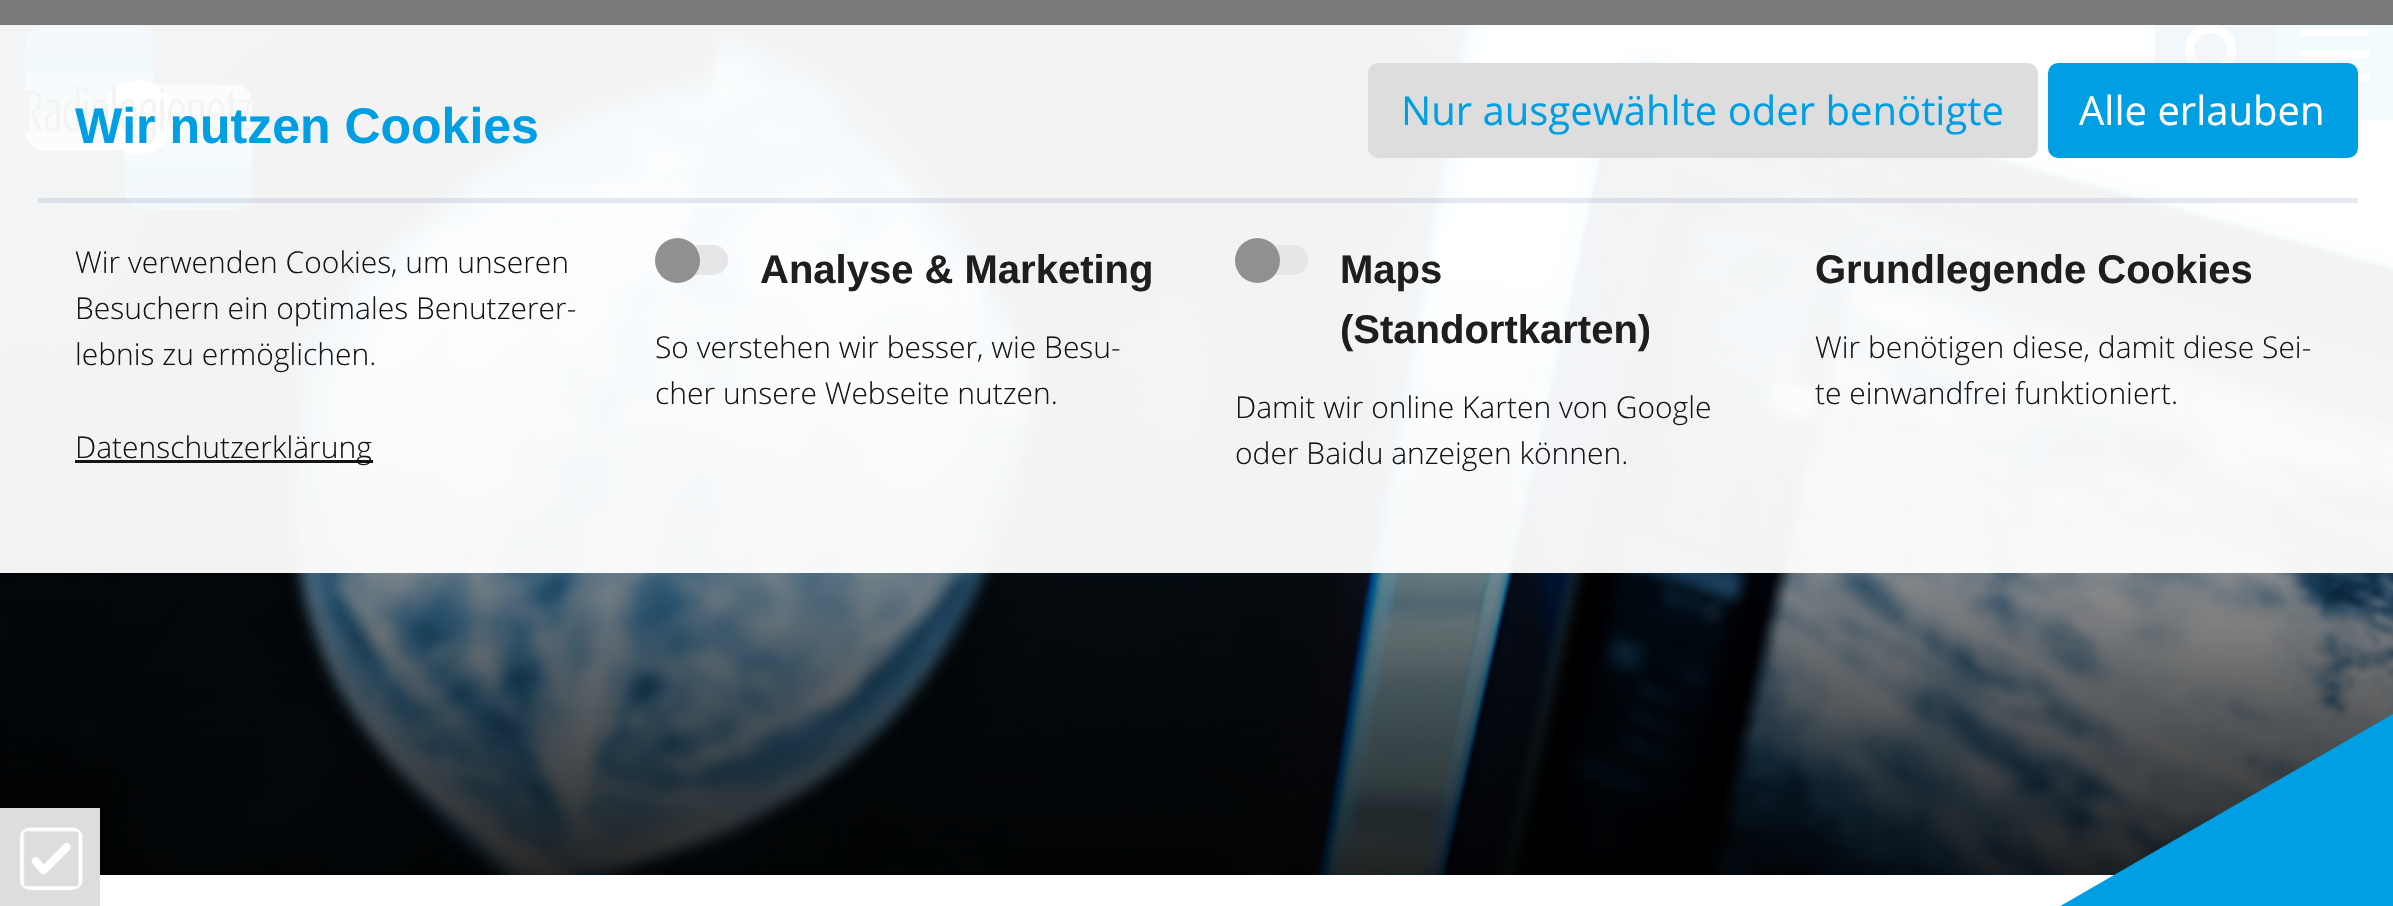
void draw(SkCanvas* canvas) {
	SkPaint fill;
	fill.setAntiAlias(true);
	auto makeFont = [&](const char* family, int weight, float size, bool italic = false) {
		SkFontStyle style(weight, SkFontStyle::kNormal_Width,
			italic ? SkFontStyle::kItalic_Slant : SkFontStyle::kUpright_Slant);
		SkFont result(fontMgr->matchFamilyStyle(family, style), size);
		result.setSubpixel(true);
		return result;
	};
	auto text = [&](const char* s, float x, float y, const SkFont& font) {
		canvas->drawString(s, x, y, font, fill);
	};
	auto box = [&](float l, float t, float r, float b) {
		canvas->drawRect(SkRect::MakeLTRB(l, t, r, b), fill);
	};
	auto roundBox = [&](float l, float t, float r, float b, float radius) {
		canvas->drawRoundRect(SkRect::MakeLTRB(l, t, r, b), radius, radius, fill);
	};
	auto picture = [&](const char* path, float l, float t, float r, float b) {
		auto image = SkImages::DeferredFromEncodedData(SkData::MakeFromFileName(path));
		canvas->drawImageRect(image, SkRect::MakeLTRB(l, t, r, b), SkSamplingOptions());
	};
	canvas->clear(0xFFFFFFFF);
	picture("image0.png", 0, 25, 2393, 875);
	picture("image1.png", 25, 25, 253, 210);
	fill.setColor(0xFF0056B3);
	box(2155, 25, 2275, 63);
	picture("image2.png", 2185, 25, 2237, 63);
	fill.setColor(0xFF009EE3);
	box(2275, 25, 2393, 120);
	fill.setColor(0xFFFFFFFF);
	roundBox(2300, 28, 2370, 36, 4);
	roundBox(2300, 50, 2370, 58, 4);
	roundBox(2300, 73, 2370, 81, 4);
	fill.setColor(0xFF009EE3);
	canvas->drawPath(SkPathBuilder().moveTo(-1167, 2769).lineTo(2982, 374).lineTo(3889, 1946).lineTo(-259, 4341).close().detach(), fill);
	fill.setColor(0xF2FFFFFF);
	box(0, 25, 2393, 573);
	fill.setColor(0xFF797979);
	box(0, 0, 2393, 25);
	fill.setColor(0x1A0E2363);
	box(38, 198, 2358, 203);
	fill.setColor(0xFFDDDDDD);
	roundBox(1368, 63, 2038, 158, 10);
	fill.setColor(0xFF009EE3);
	roundBox(2048, 63, 2358, 158, 10);
	fill.setColor(0xFF151515);
	box(75, 460, 373, 463);
	fill.setColor(0xFFE6E6E6);
	roundBox(655, 245, 728, 275, 15);
	fill.setColor(0xFF909090);
	canvas->drawCircle(677.5f, 260.5f, 22.5f, fill);
	fill.setColor(0xFFE6E6E6);
	roundBox(1235, 245, 1308, 275, 15);
	fill.setColor(0xFF909090);
	canvas->drawCircle(1257.5f, 260.5f, 22.5f, fill);
	fill.setColor(0xFFDDDDDD);
	box(0, 808, 100, 906);
	picture("image3.png", 19, 827, 83, 890);
	auto font1 = makeFont("Liberation Sans", 700, 50);
	fill.setColor(0xFF009EE3);
	text("Wir nutzen Cookies", 75, 143, font1);
	auto font2 = makeFont("Open Sans", 400, 40);
	text("Nur ausgewählte oder benötigte", 1401, 125, font2);
	fill.setColor(0xFFFFFFFF);
	text("Alle erlauben", 2079, 125, font2);
	auto font3 = makeFont("Open Sans", 300, 30);
	fill.setColor(0xFF151515);
	text("Wir verwenden Cookies, um unseren", 75, 273, font3);
	text("Besuchern ein optimales Benutzerer-", 75, 319, font3);
	text("lebnis zu ermöglichen.", 75, 365, font3);
	text("Datenschutzerklärung", 75, 458, font3);
	auto font4 = makeFont("Liberation Sans", 700, 40);
	fill.setColor(0xFF1E1E1E);
	text("Analyse & Marketing", 760, 283, font4);
	fill.setColor(0xFF151515);
	text("So verstehen wir besser, wie Besu-", 655, 358, font3);
	text("cher unsere Webseite nutzen.", 655, 404, font3);
	fill.setColor(0xFF1E1E1E);
	text("Maps", 1340, 283, font4);
	text("(Standortkarten)", 1340, 343, font4);
	fill.setColor(0xFF151515);
	text("Damit wir online Karten von Google", 1235, 418, font3);
	text("oder Baidu anzeigen können.", 1235, 464, font3);
	fill.setColor(0xFF1E1E1E);
	text("Grundlegende Cookies", 1815, 283, font4);
	fill.setColor(0xFF151515);
	text("Wir benötigen diese, damit diese Sei-", 1815, 358, font3);
	text("te einwandfrei funktioniert.", 1815, 404, font3);
}
